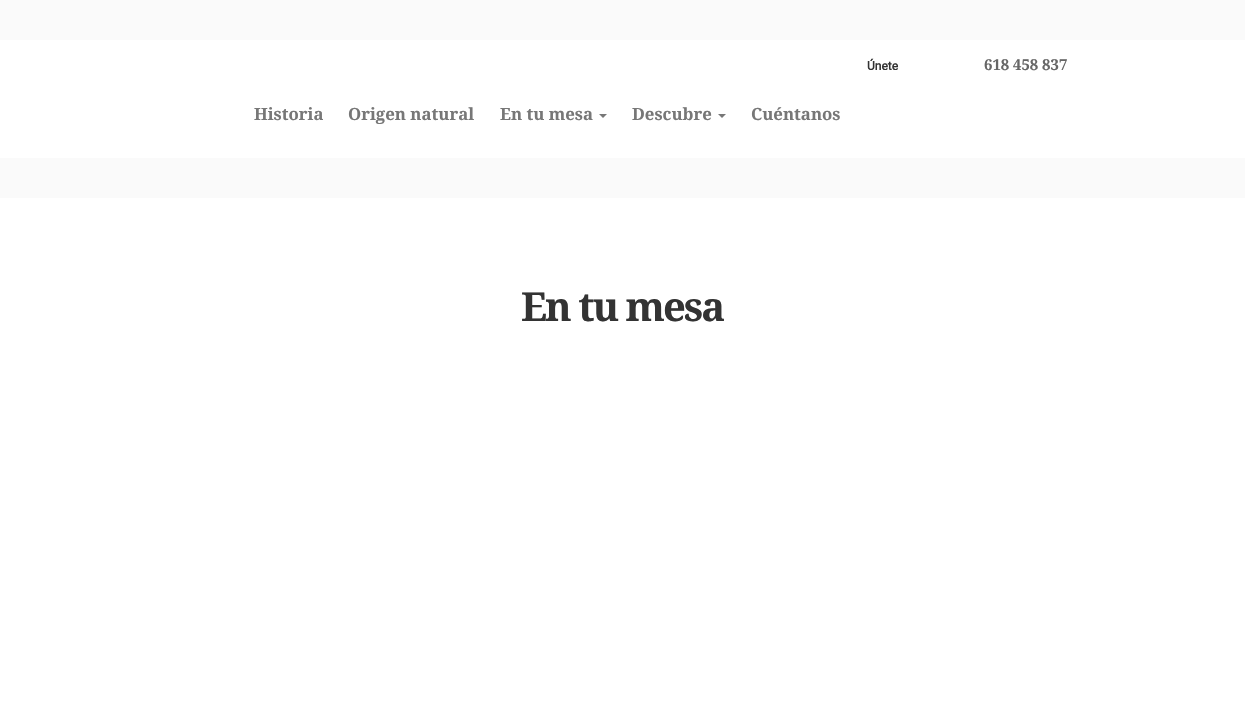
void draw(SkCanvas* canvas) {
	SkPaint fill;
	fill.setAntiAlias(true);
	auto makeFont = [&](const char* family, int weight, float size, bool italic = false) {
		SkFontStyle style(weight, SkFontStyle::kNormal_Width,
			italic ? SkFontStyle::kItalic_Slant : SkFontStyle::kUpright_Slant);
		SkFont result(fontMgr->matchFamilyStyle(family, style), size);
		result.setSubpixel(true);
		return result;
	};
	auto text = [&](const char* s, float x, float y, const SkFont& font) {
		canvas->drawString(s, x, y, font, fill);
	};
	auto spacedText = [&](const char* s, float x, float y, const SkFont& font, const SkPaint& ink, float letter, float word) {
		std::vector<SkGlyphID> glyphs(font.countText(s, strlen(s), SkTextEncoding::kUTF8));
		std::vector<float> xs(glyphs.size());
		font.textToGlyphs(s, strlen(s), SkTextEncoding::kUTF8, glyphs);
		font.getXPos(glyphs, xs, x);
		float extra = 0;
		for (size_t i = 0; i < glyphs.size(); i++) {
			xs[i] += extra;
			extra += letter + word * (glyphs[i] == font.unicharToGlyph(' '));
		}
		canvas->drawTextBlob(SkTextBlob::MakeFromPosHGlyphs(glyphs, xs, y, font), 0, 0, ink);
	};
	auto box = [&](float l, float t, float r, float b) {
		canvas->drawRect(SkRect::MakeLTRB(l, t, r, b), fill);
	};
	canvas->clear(0xFFFAFAFA);
	fill.setColor(0xFFFFFFFF);
	box(0, 40, 1245, 158);
	fill.setColor(0xFF777777);
	canvas->drawPath(SkPathBuilder().moveTo(599, 114).lineTo(607, 114).lineTo(603, 118).close().detach(), fill);
	canvas->drawPath(SkPathBuilder().moveTo(718, 114).lineTo(726, 114).lineTo(722, 118).close().detach(), fill);
	fill.setColor(0xFFFFFFFF);
	box(0, 198, 1245, 714);
	auto font1 = makeFont("Roboto", 700, 12);
	fill.setColor(0xFF333333);
	text("Únete", 867, 70, font1);
	auto font2 = makeFont("Droid Serif", 700, 15);
	fill.setColor(0xFF666666);
	text("618 458 837", 984, 70, font2);
	auto font3 = makeFont("Droid Serif", 700, 16.75f);
	fill.setColor(0xFF777777);
	text("Historia", 254, 120, font3);
	text("Origen natural", 348, 120, font3);
	text("En tu mesa", 500, 120, font3);
	text("Descubre", 632, 120, font3);
	text("Cuéntanos", 751, 120, font3);
	auto font4 = makeFont("Droid Serif", 700, 40);
	fill.setColor(0xFF333333);
	spacedText("En tu mesa", 521, 321, font4, fill, -2, 0);
}
